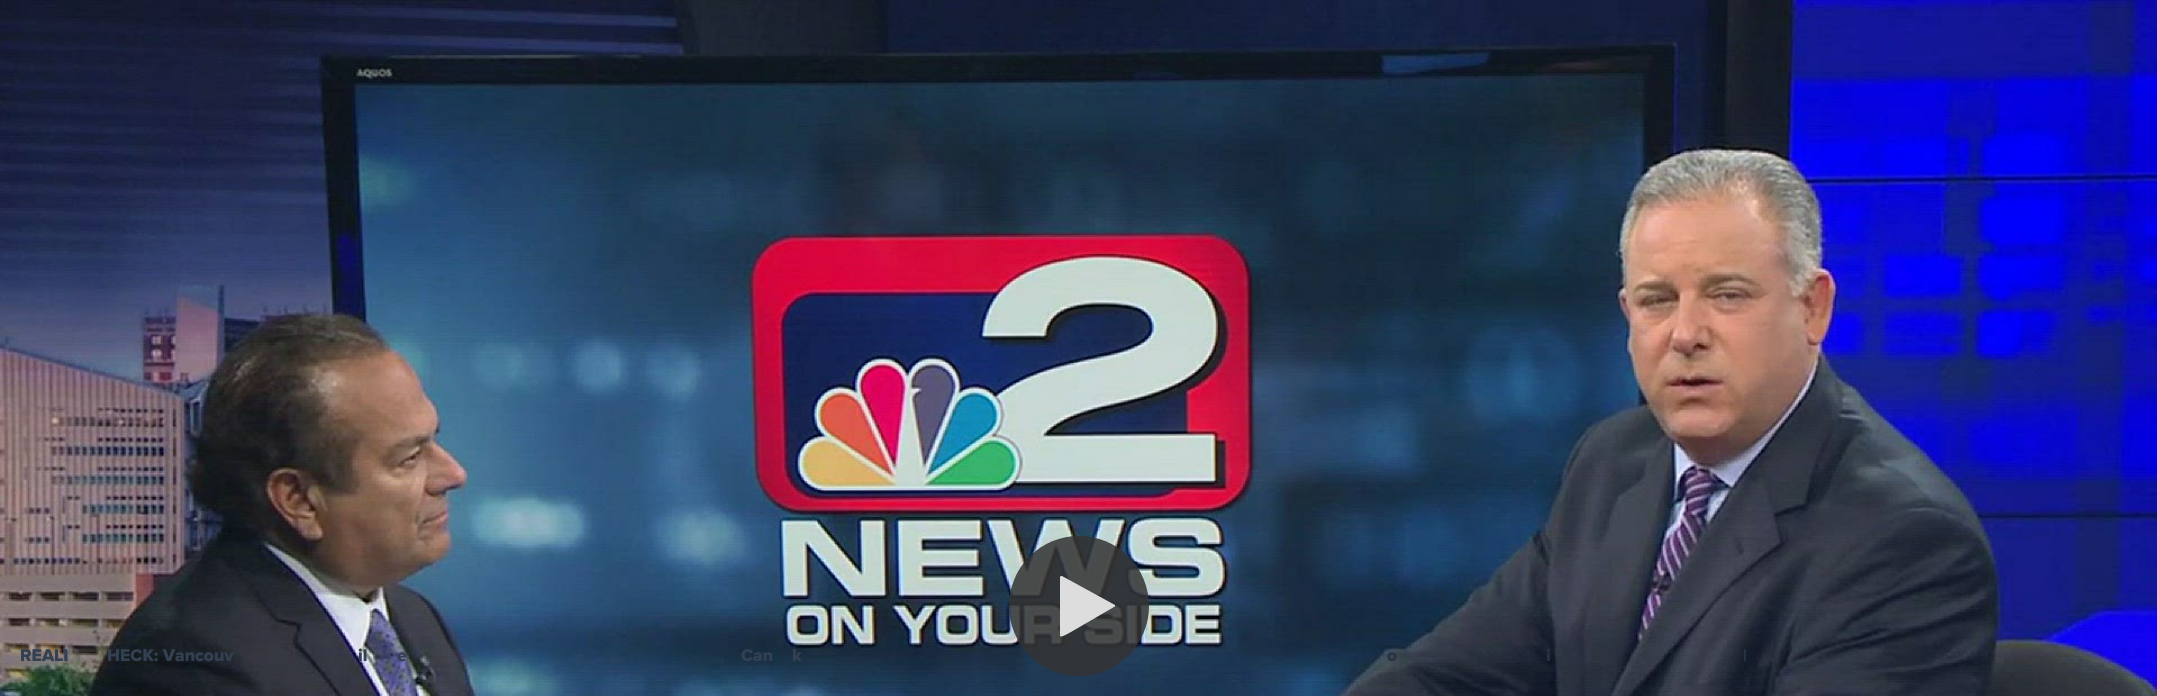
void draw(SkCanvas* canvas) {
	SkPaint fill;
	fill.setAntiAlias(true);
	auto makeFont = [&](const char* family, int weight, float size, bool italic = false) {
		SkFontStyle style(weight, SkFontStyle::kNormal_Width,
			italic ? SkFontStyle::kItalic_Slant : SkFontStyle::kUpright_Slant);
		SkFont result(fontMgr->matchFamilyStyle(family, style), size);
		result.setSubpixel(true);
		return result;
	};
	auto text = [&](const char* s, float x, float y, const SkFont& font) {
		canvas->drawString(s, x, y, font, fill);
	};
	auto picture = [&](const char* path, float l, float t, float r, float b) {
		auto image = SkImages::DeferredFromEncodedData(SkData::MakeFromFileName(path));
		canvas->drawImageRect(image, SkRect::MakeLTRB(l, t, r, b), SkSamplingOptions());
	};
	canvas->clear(0xFFFFFFFF);
	picture("image0.png", 0, 0, 2157, 696);
	fill.setColor(0xD9333333);
	canvas->drawCircle(1079, 606, 70, fill);
	fill.setColor(0xFFDDDDDD);
	canvas->drawPath(SkPathBuilder().moveTo(1114, 607).lineTo(1071, 632).cubicTo(1070, 632, 1062, 638, 1060, 636).lineTo(1060, 577).cubicTo(1060, 576, 1061, 576, 1062, 576).lineTo(1115, 605).cubicTo(1115, 606, 1115, 607, 1114, 607).close().detach(), fill);
	auto font1 = makeFont("Proxima Nova", 800, 17.5f);
	fill.setColor(0xFF334051);
	text("REALI", 20, 661, font1);
	text("HECK: Vancouv", 107, 661, font1);
	text("il", 358, 661, font1);
	text("e", 397, 661, font1);
	text("Can", 741, 661, font1);
	text("k", 792, 661, font1);
	fill.setColor(0xFF273345);
	text("o", 1387, 661, font1);
	text("i", 1546, 661, font1);
	text("|", 1743, 661, font1);
}
